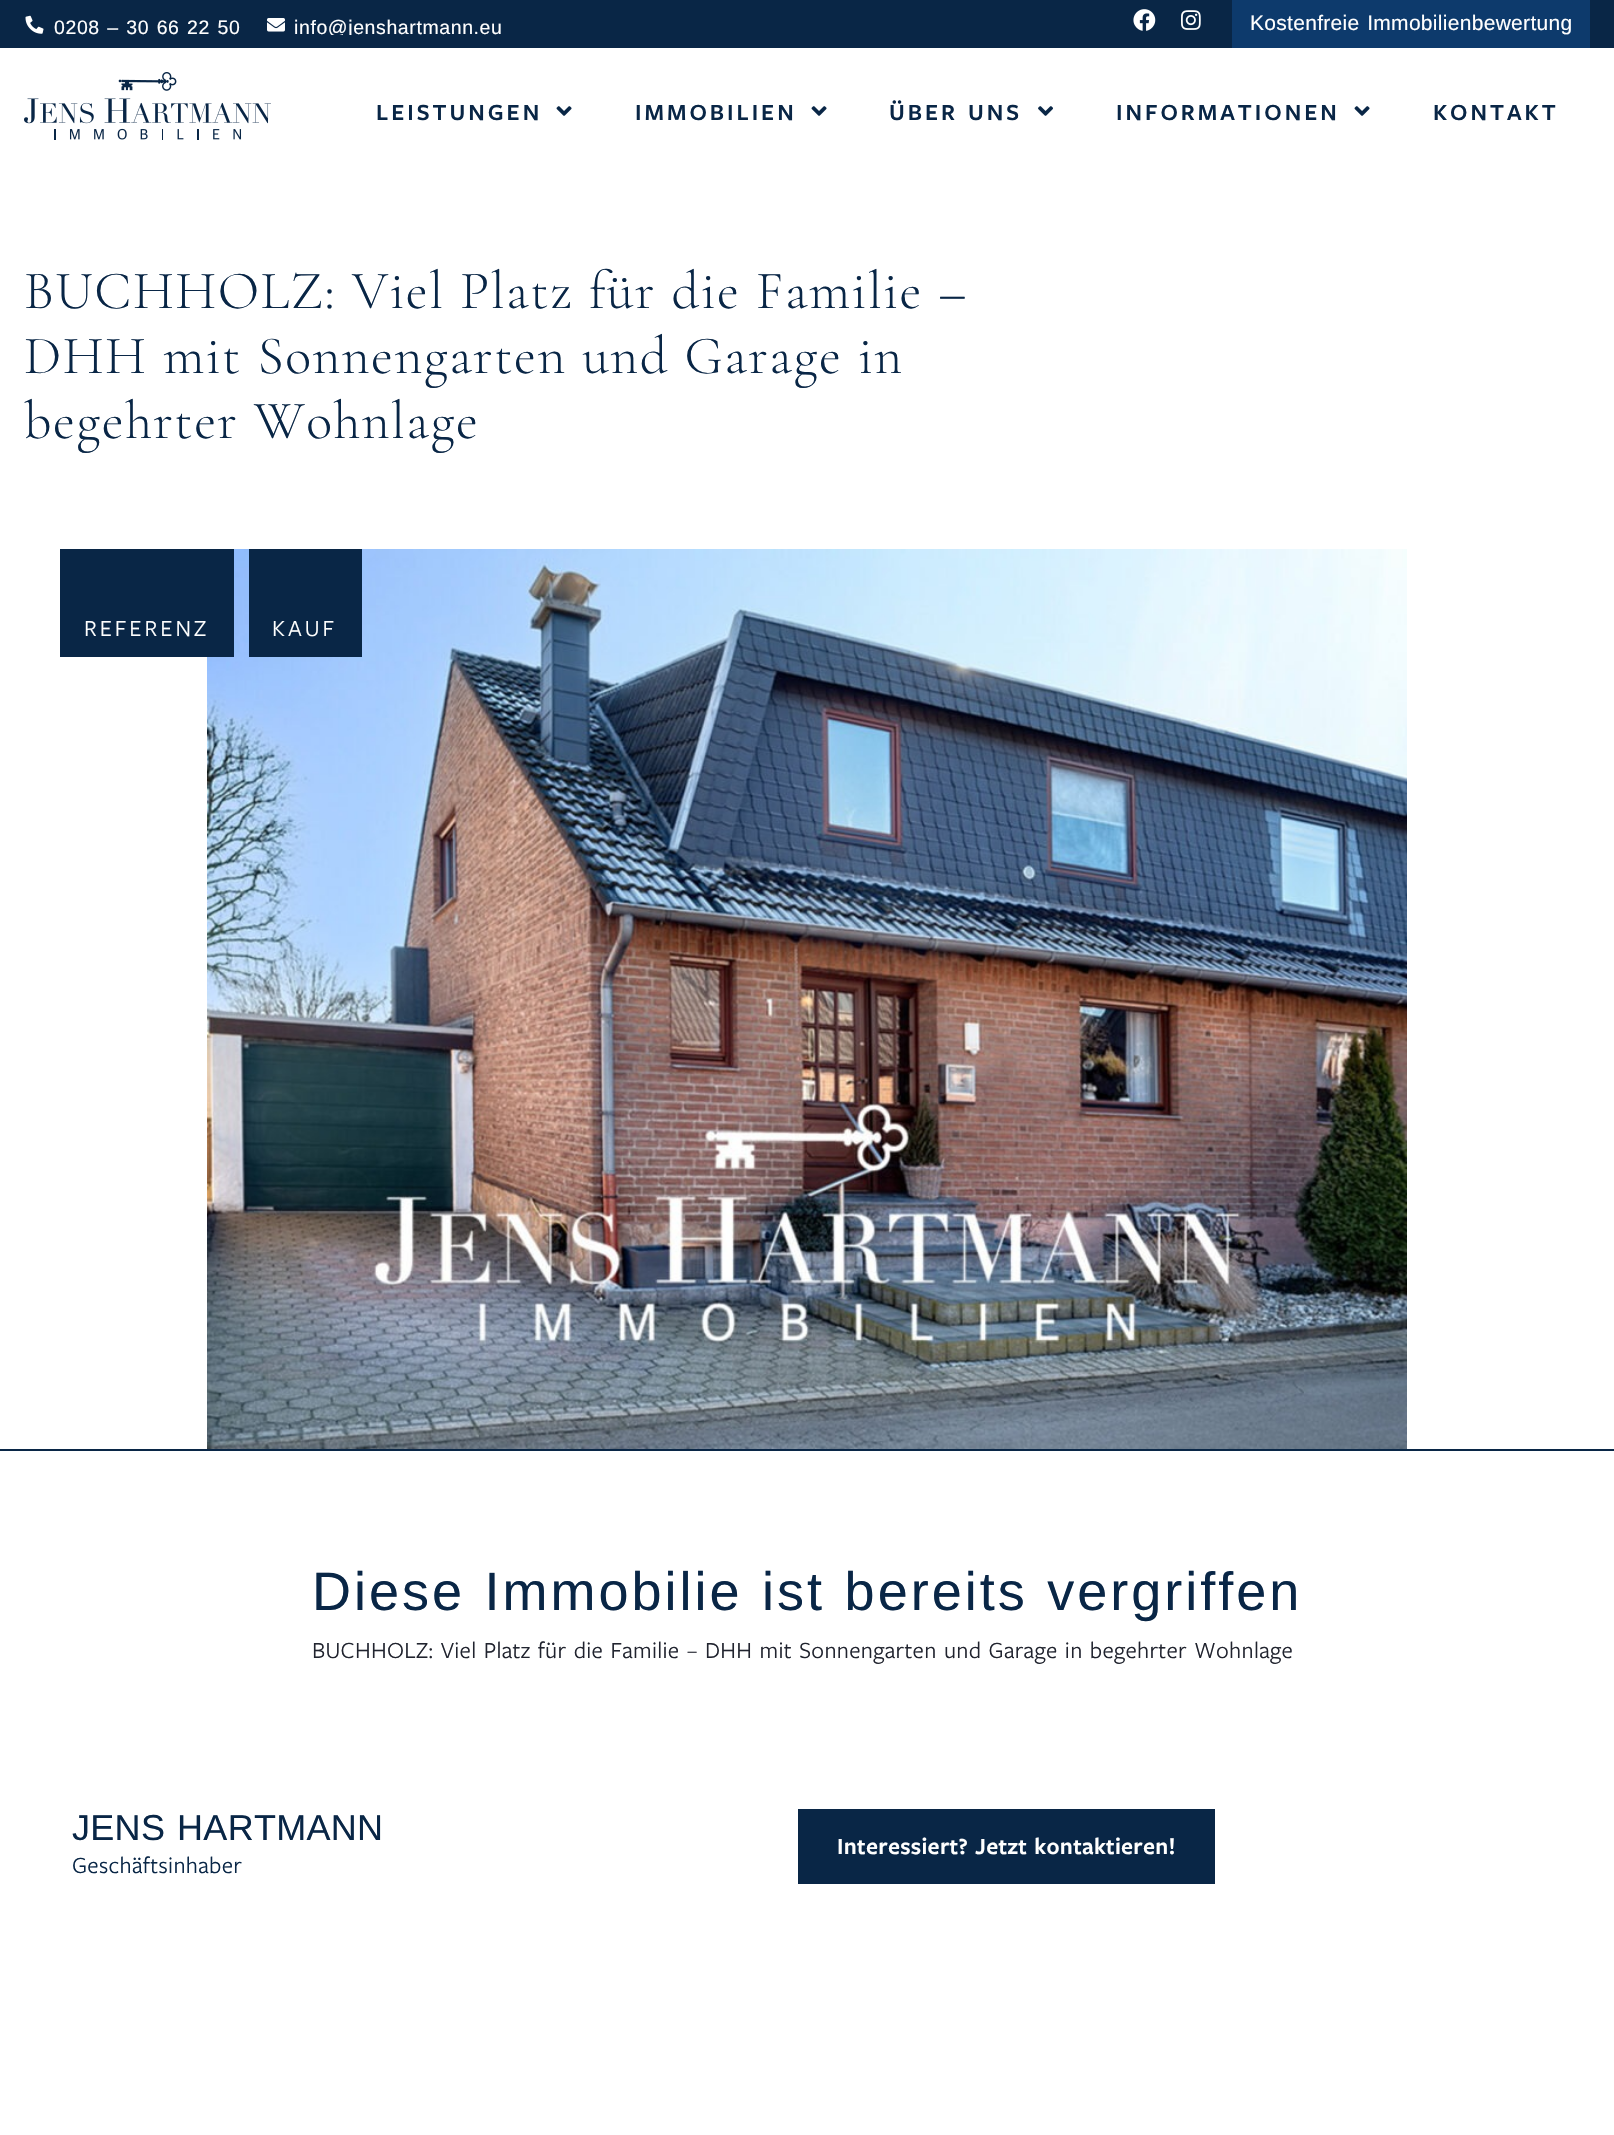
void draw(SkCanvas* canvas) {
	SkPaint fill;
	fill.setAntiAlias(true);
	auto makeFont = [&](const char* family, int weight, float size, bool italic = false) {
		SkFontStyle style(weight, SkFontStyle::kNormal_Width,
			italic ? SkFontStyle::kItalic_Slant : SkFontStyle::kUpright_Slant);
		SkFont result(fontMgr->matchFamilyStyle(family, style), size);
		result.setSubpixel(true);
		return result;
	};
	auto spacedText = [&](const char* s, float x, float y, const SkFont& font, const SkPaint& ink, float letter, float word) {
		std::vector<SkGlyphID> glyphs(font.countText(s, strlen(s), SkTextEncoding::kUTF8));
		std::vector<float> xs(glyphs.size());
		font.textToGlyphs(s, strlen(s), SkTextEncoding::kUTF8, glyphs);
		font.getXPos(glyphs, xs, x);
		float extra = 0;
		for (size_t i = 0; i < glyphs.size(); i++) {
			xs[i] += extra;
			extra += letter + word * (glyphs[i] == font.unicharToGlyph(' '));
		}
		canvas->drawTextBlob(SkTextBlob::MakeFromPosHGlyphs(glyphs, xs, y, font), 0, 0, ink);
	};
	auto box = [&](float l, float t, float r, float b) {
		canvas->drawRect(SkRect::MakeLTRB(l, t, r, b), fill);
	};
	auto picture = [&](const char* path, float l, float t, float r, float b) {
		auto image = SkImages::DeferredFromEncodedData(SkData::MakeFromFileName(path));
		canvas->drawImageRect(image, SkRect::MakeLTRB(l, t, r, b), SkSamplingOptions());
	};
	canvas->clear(0xFFFFFFFF);
	fill.setColor(0xFF092646);
	box(0, 0, 1614, 48);
	picture("image0.png", 25, 15, 44, 34);
	picture("image1.png", 267, 18, 285, 32);
	picture("image2.png", 1133, 9, 1156, 31);
	picture("image3.png", 1181, 10, 1201, 30);
	fill.setColor(0xFF0D3A6C);
	box(1232, 0, 1590, 48);
	picture("image4.png", 24, 72, 271, 140);
	picture("image5.png", 556, 106, 572, 116);
	picture("image5.png", 811, 106, 827, 116);
	picture("image6.png", 1038, 106, 1053, 116);
	picture("image5.png", 1354, 106, 1370, 116);
	picture("image7.png", 207, 549, 1407, 1449);
	fill.setColor(0xFF092646);
	box(60, 549, 234, 657);
	box(249, 549, 362, 657);
	box(0, 1449, 1614, 1451);
	box(798, 1809, 1215, 1884);
	auto font1 = makeFont("Liberation Sans", 400, 19.5f);
	fill.setColor(0xFFFFFFFF);
	spacedText("0208 – 30 66 22 50", 54, 34, font1, fill, 0.6f, 1.5f);
	canvas->save();
	canvas->clipRect(SkRect::MakeLTRB(24, 15, 1103, 35));
	spacedText("info@jenshartmann.eu", 294, 34, font1, fill, 0.6f, 0);
	canvas->restore();
	auto font2 = makeFont("Liberation Sans", 400, 21);
	spacedText("Kostenfreie Immobilienbewertung", 1250, 30, font2, fill, 0.3f, 1.5f);
	auto font3 = makeFont("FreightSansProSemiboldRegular", 600, 24);
	fill.setColor(0xFF092646);
	spacedText("LEISTUNGEN", 376, 120, font3, fill, 3, 0);
	spacedText("IMMOBILIEN", 635, 120, font3, fill, 3, 0);
	spacedText("ÜBER UNS", 889, 120, font3, fill, 3, 1.5f);
	spacedText("INFORMATIONEN", 1116, 120, font3, fill, 3, 0);
	spacedText("KONTAKT", 1433, 120, font3, fill, 3, 0);
	auto font4 = makeFont("Cormorant Garamond", 300, 54);
	spacedText("BUCHHOLZ: Viel Platz für die Familie –", 24, 308, font4, fill, 1.5f, 1.5f);
	spacedText("DHH mit Sonnengarten und Garage in", 24, 373, font4, fill, 1.5f, 1.5f);
	spacedText("begehrter Wohnlage", 24, 438, font4, fill, 1.5f, 1.5f);
	auto font5 = makeFont("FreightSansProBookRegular", 400, 24);
	fill.setColor(0xFFFFFFFF);
	spacedText("REFERENZ", 84, 636, font5, fill, 3, 0);
	spacedText("KAUF", 272, 636, font5, fill, 3, 0);
	auto font6 = makeFont("Liberation Sans", 400, 54);
	fill.setColor(0xFF092646);
	spacedText("Diese Immobilie ist bereits vergriffen", 312, 1610, font6, fill, 3, 1.5f);
	fill.setColor(0xFF21242F);
	spacedText("BUCHHOLZ: Viel Platz für die Familie – DHH mit Sonnengarten und Garage in begehrter Wohnlage", 312, 1658, font5, fill, 0.3f, 1.5f);
	auto font7 = makeFont("Liberation Sans", 400, 36);
	fill.setColor(0xFF092646);
	spacedText("JENS HARTMANN", 72, 1840, font7, fill, 0.3f, 1.5f);
	spacedText("Geschäftsinhaber", 72, 1873, font5, fill, 0.3f, 0);
	fill.setColor(0xFFFFFFFF);
	spacedText("Interessiert? Jetzt kontaktieren!", 837, 1854, font3, fill, 0.3f, 1.5f);
}
